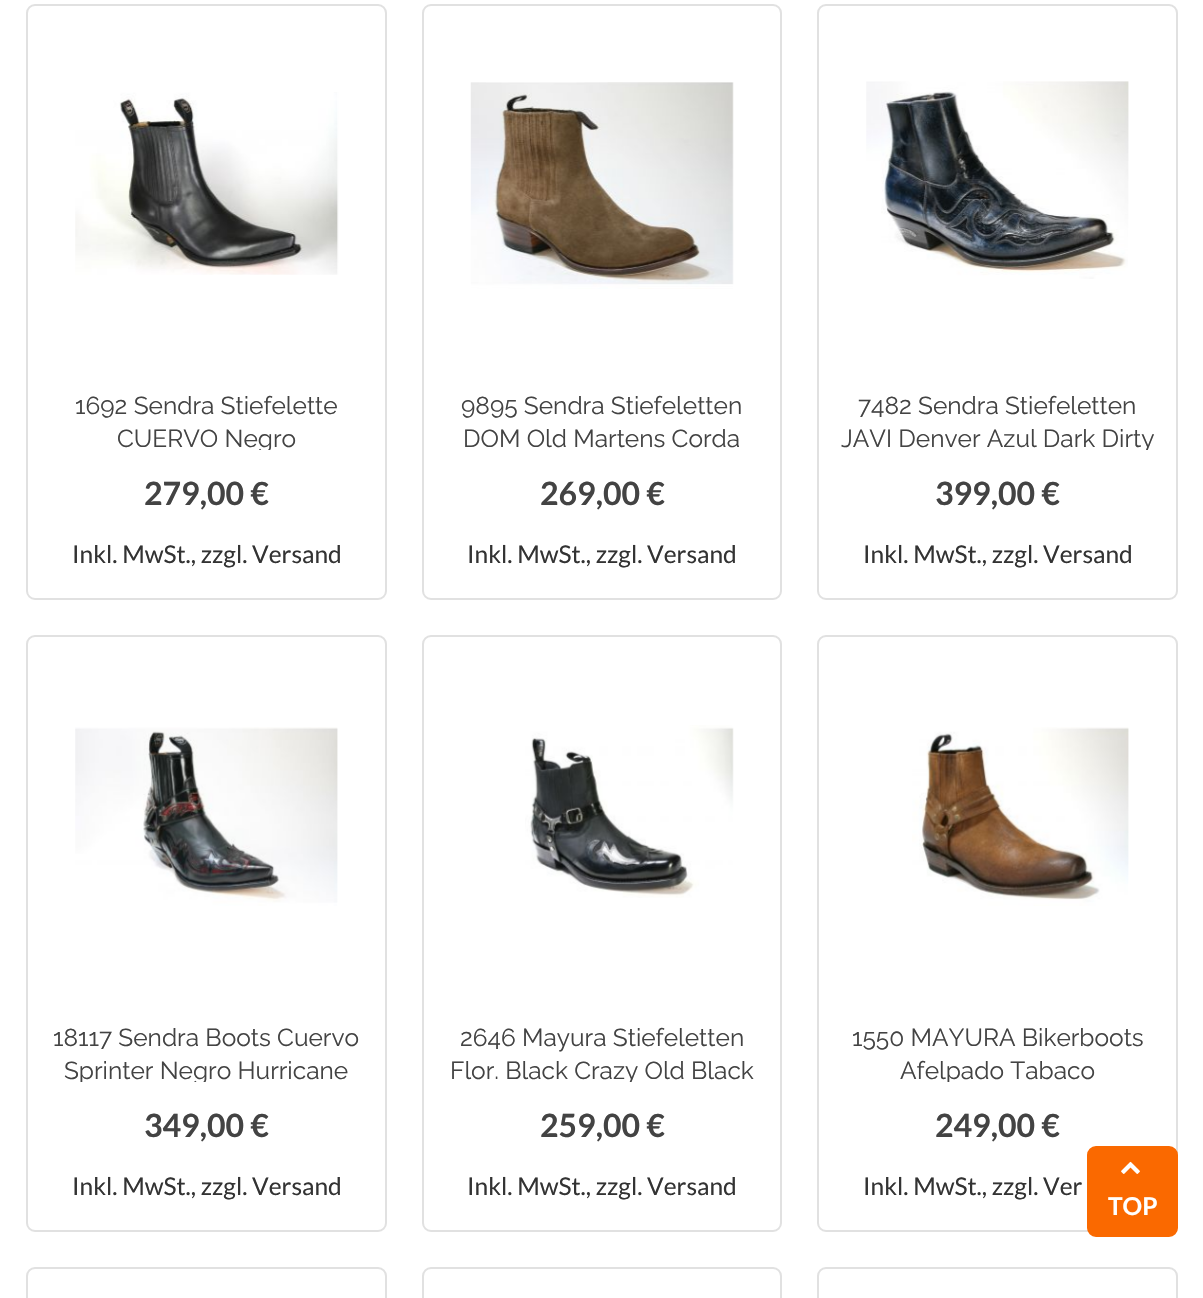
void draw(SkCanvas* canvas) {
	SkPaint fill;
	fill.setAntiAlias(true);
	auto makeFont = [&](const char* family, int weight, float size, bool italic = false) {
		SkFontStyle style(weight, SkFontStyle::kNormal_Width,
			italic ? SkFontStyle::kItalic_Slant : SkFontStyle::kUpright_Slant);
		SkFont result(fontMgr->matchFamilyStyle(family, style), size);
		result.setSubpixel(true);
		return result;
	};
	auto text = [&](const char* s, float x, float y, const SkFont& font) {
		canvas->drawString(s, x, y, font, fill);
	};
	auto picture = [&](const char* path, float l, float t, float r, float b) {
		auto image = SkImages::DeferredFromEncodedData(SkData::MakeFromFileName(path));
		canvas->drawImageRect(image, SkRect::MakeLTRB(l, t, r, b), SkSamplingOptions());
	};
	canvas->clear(0xFFFFFFFF);
	fill.setStyle(SkPaint::kStroke_Style);
	fill.setStrokeWidth(2);
	fill.setColor(0xFFE1E1E1);
	canvas->drawRoundRect(SkRect::MakeLTRB(27, 5, 386, 599), 8, 8, fill);
	picture("image0.png", 75, 92, 339, 275);
	canvas->drawRoundRect(SkRect::MakeLTRB(423, 5, 781, 599), 8, 8, fill);
	picture("image1.png", 470, 82, 734, 289);
	canvas->drawRoundRect(SkRect::MakeLTRB(818, 5, 1177, 599), 8, 8, fill);
	picture("image2.png", 866, 81, 1129, 279);
	canvas->drawRoundRect(SkRect::MakeLTRB(27, 636, 386, 1231), 8, 8, fill);
	picture("image3.png", 75, 727, 338, 906);
	canvas->drawRoundRect(SkRect::MakeLTRB(423, 636, 781, 1231), 8, 8, fill);
	picture("image4.png", 525, 725, 734, 898);
	canvas->drawRoundRect(SkRect::MakeLTRB(818, 636, 1177, 1231), 8, 8, fill);
	picture("image5.png", 912, 727, 1129, 906);
	canvas->drawRoundRect(SkRect::MakeLTRB(27, 1268, 386, 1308), 8, 8, fill);
	canvas->drawRoundRect(SkRect::MakeLTRB(423, 1268, 781, 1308), 8, 8, fill);
	canvas->drawRoundRect(SkRect::MakeLTRB(818, 1268, 1177, 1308), 8, 8, fill);
	fill.setStyle(SkPaint::kFill_Style);
	fill.setColor(0xFFFA6900);
	canvas->drawRoundRect(SkRect::MakeLTRB(1088, 1147, 1177, 1236), 8, 8, fill);
	fill.setStyle(SkPaint::kStroke_Style);
	canvas->drawRoundRect(SkRect::MakeLTRB(1088, 1147, 1177, 1236), 8, 8, fill);
	picture("image6.png", 1121, 1161, 1140, 1174);
	auto font1 = makeFont("Raleway", 400, 24.5f);
	fill.setStyle(SkPaint::kFill_Style);
	fill.setColor(0xFF434343);
	text("1692 Sendra Stiefelette", 75, 414, font1);
	canvas->save();
	canvas->clipRect(SkRect::MakeLTRB(46, 389, 368, 450));
	text("CUERVO Negro", 117, 447, font1);
	canvas->restore();
	auto font2 = makeFont("Lato", 700, 32);
	text("279,00 €", 144, 505, font2);
	auto font3 = makeFont("Lato", 400, 24.5f);
	fill.setColor(0xFF333333);
	text("Inkl. MwSt., zzgl. Versand", 72, 563, font3);
	fill.setColor(0xFF434343);
	text("9895 Sendra Stiefeletten", 461, 414, font1);
	text("DOM Old Martens Corda", 463, 447, font1);
	text("269,00 €", 540, 505, font2);
	fill.setColor(0xFF333333);
	text("Inkl. MwSt., zzgl. Versand", 467, 563, font3);
	fill.setColor(0xFF434343);
	text("7482 Sendra Stiefeletten", 858, 414, font1);
	canvas->save();
	canvas->clipRect(SkRect::MakeLTRB(837, 389, 1159, 450));
	text("JAVI Denver Azul Dark Dirty", 841, 447, font1);
	canvas->restore();
	text("399,00 €", 935, 505, font2);
	fill.setColor(0xFF333333);
	text("Inkl. MwSt., zzgl. Versand", 863, 563, font3);
	fill.setColor(0xFF434343);
	text("18117 Sendra Boots Cuervo", 53, 1046, font1);
	canvas->save();
	canvas->clipRect(SkRect::MakeLTRB(46, 1020, 368, 1082));
	text("Sprinter Negro Hurricane", 64, 1079, font1);
	canvas->restore();
	text("349,00 €", 144, 1137, font2);
	fill.setColor(0xFF333333);
	text("Inkl. MwSt., zzgl. Versand", 72, 1195, font3);
	fill.setColor(0xFF434343);
	text("2646 Mayura Stiefeletten", 460, 1046, font1);
	canvas->save();
	canvas->clipRect(SkRect::MakeLTRB(441, 1020, 763, 1082));
	text("Flor. Black Crazy Old Black", 450, 1079, font1);
	canvas->restore();
	text("259,00 €", 540, 1137, font2);
	fill.setColor(0xFF333333);
	text("Inkl. MwSt., zzgl. Versand", 467, 1195, font3);
	fill.setColor(0xFF434343);
	text("1550 MAYURA Bikerboots", 852, 1046, font1);
	canvas->save();
	canvas->clipRect(SkRect::MakeLTRB(837, 1020, 1159, 1082));
	text("Afelpado Tabaco", 900, 1079, font1);
	canvas->restore();
	text("249,00 €", 935, 1137, font2);
	fill.setColor(0xFF333333);
	text("Inkl. MwSt., zzgl. Ver", 863, 1195, font3);
	auto font4 = makeFont("Lato", 700, 24.5f);
	fill.setColor(0xFFFFFFFF);
	text("TOP", 1108, 1215, font4);
}
